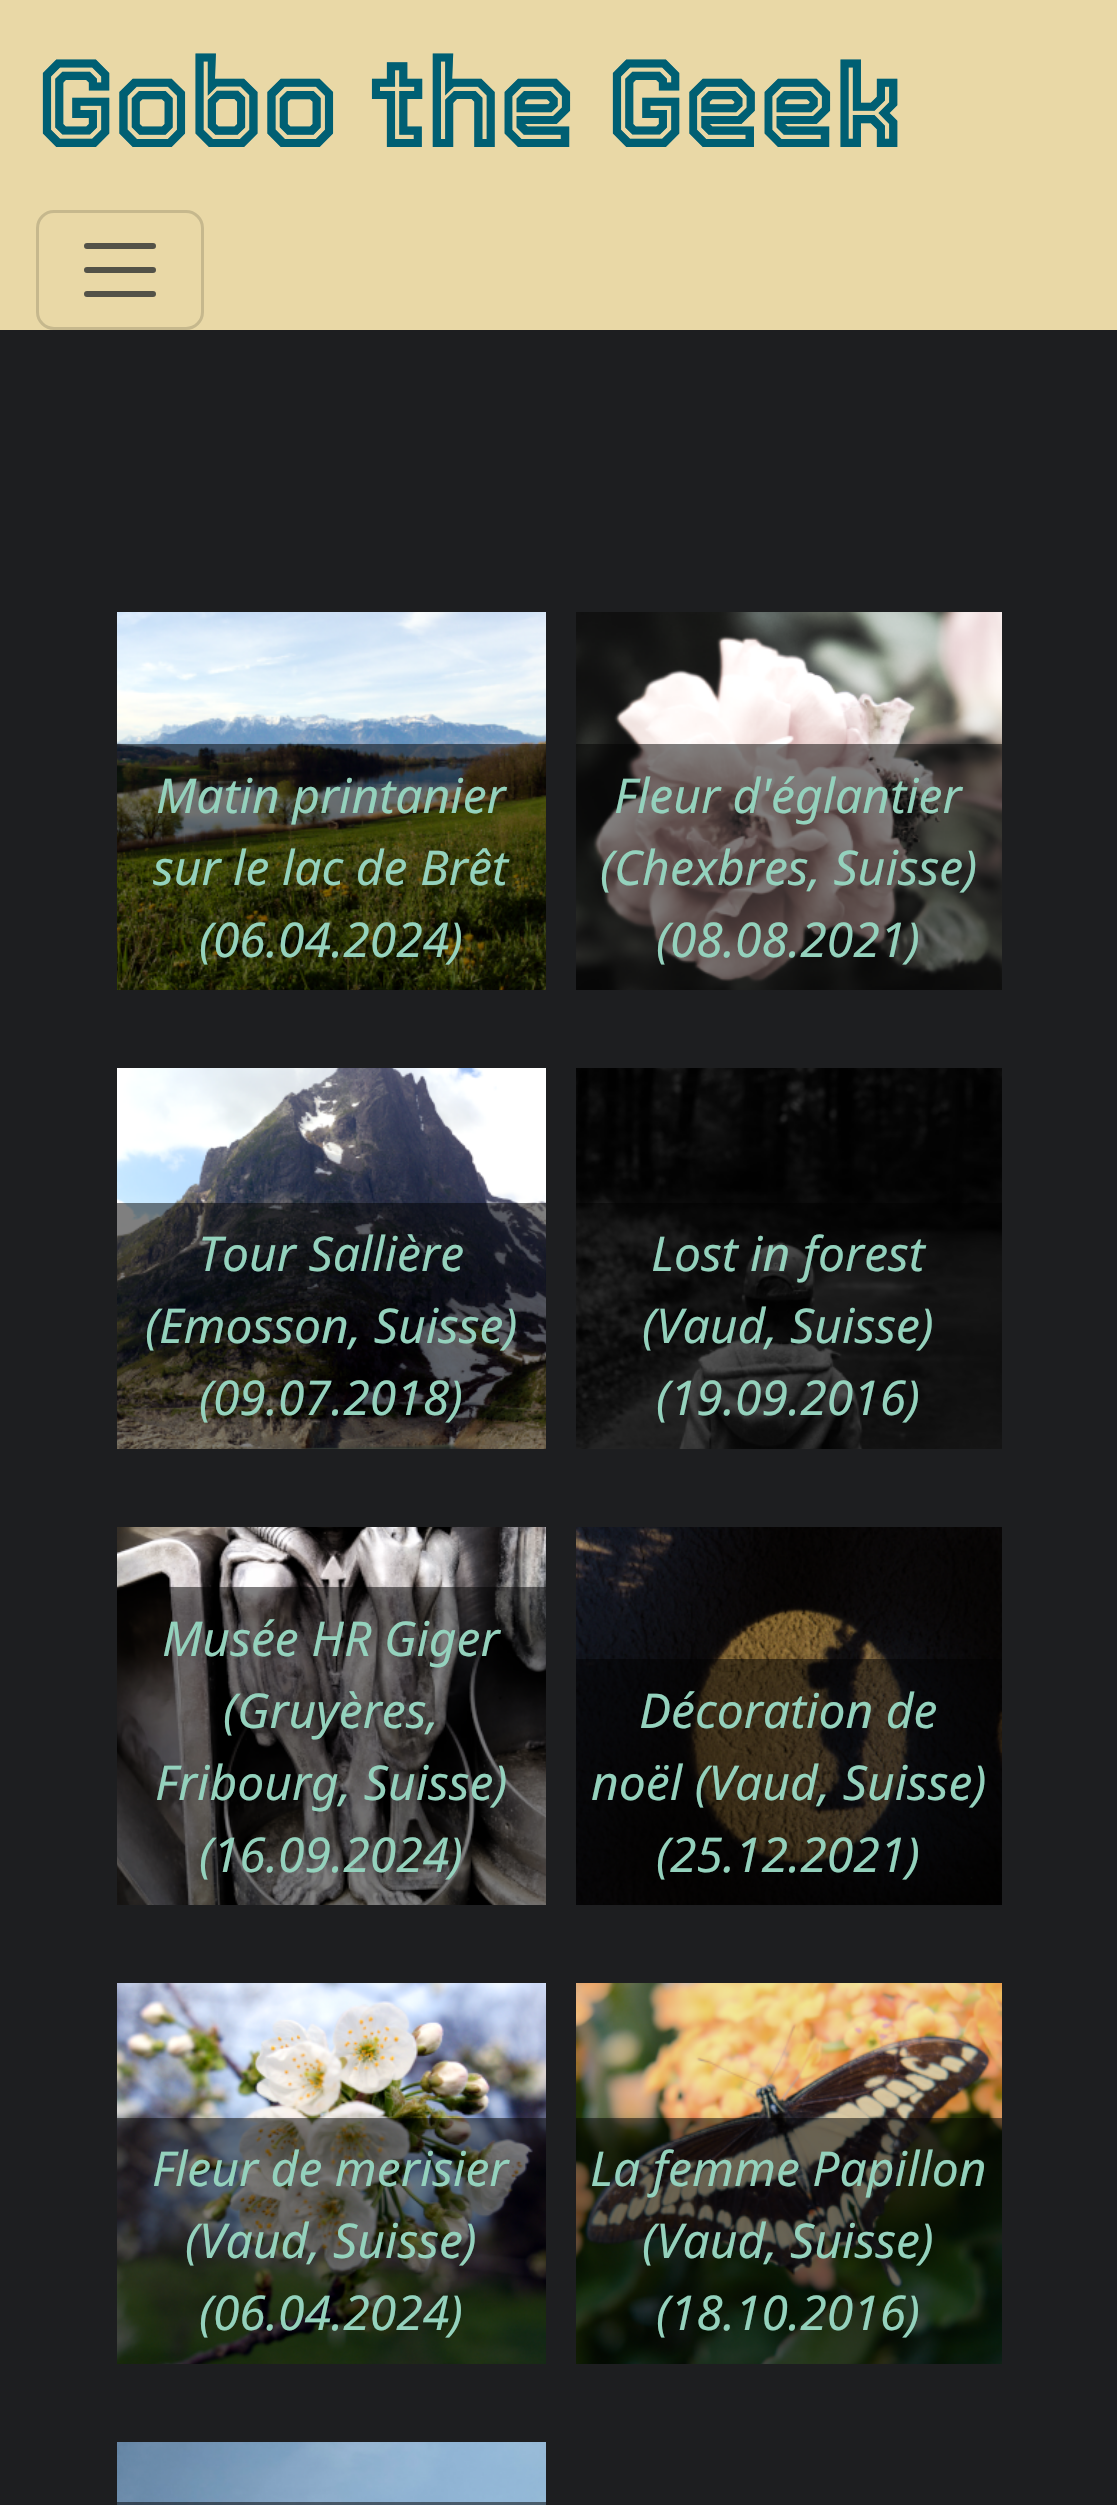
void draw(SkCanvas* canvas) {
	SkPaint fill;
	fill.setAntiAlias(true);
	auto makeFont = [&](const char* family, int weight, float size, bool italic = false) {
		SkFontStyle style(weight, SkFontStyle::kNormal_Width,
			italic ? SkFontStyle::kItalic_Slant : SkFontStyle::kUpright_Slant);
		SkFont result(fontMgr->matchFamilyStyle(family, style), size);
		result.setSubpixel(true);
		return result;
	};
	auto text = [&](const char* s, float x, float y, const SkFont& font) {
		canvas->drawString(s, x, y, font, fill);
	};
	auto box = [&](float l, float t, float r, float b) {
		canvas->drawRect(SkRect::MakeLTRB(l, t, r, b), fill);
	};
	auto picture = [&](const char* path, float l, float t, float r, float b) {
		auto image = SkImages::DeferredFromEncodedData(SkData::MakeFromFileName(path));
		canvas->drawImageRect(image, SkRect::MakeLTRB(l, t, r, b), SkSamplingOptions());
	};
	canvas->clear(0xFF1D1E20);
	fill.setColor(0xFFE9D8A6);
	box(0, 0, 1117, 330);
	fill.setStyle(SkPaint::kStroke_Style);
	fill.setStrokeWidth(3);
	fill.setColor(0xFFC6B88D);
	canvas->drawRoundRect(SkRect::MakeLTRB(37.5f, 211.5f, 202.5f, 328.5f), 16.5f, 16.5f, fill);
	fill.setStrokeWidth(6);
	fill.setStrokeCap(SkPaint::kRound_Cap);
	fill.setColor(0xFF535248);
	canvas->drawPath(SkPathBuilder().moveTo(87, 246).lineTo(153, 246).moveTo(87, 270).lineTo(153, 270).moveTo(87, 294).lineTo(153, 294).detach(), fill);
	picture("image0.png", 117, 612, 546, 990);
	fill.setStyle(SkPaint::kFill_Style);
	fill.setColor(0x80000000);
	box(117, 744, 546, 990);
	picture("image1.png", 576, 612, 1002, 990);
	box(576, 744, 1002, 990);
	picture("image2.png", 117, 1068, 546, 1449);
	box(117, 1203, 546, 1449);
	picture("image3.png", 576, 1068, 1002, 1449);
	box(576, 1203, 1002, 1449);
	picture("image4.png", 117, 1527, 546, 1905);
	box(117, 1587, 546, 1905);
	picture("image5.png", 576, 1527, 1002, 1905);
	box(576, 1659, 1002, 1905);
	picture("image6.png", 117, 1983, 546, 2364);
	box(117, 2118, 546, 2364);
	picture("image7.png", 576, 1983, 1002, 2364);
	box(576, 2118, 1002, 2364);
	picture("image8.png", 117, 2442, 546, 2505);
	box(117, 2502, 546, 2505);
	auto font1 = makeFont("Tourney", 700, 120);
	fill.setColor(0xFF005F73);
	text("Gobo the Geek", 36, 147, font1);
	auto font2 = makeFont("Noto Sans", 400, 48, true);
	fill.setColor(0xFF94D2BD);
	text("Matin printanier", 156, 813, font2);
	text("sur le lac de Brêt", 153, 885, font2);
	text("(06.04.2024)", 199, 957, font2);
	text("Fleur d'églantier", 614, 813, font2);
	text("(Chexbres, Suisse)", 600, 885, font2);
	text("(08.08.2021)", 656, 957, font2);
	text("Tour Sallière", 198, 1271, font2);
	text("(Emosson, Suisse)", 145, 1343, font2);
	text("(09.07.2018)", 199, 1415, font2);
	text("Lost in forest", 651, 1271, font2);
	text("(Vaud, Suisse)", 642, 1343, font2);
	text("(19.09.2016)", 656, 1415, font2);
	text("Musée HR Giger", 162, 1656, font2);
	text("(Gruyères,", 223, 1728, font2);
	text("Fribourg, Suisse)", 155, 1800, font2);
	text("(16.09.2024)", 199, 1872, font2);
	text("Décoration de", 639, 1728, font2);
	text("noël (Vaud, Suisse)", 591, 1800, font2);
	text("(25.12.2021)", 656, 1872, font2);
	text("Fleur de merisier", 152, 2186, font2);
	text("(Vaud, Suisse)", 185, 2258, font2);
	text("(06.04.2024)", 199, 2330, font2);
	text("La femme Papillon", 590, 2186, font2);
	text("(Vaud, Suisse)", 642, 2258, font2);
	text("(18.10.2016)", 656, 2330, font2);
}
